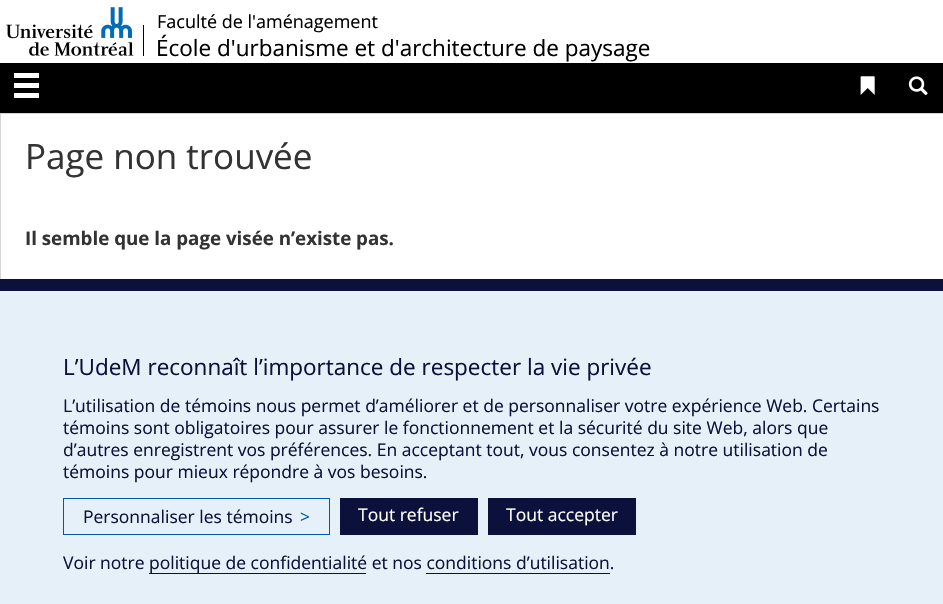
void draw(SkCanvas* canvas) {
	SkPaint fill;
	fill.setAntiAlias(true);
	auto makeFont = [&](const char* family, int weight, float size, bool italic = false) {
		SkFontStyle style(weight, SkFontStyle::kNormal_Width,
			italic ? SkFontStyle::kItalic_Slant : SkFontStyle::kUpright_Slant);
		SkFont result(fontMgr->matchFamilyStyle(family, style), size);
		result.setSubpixel(true);
		return result;
	};
	auto text = [&](const char* s, float x, float y, const SkFont& font) {
		canvas->drawString(s, x, y, font, fill);
	};
	auto box = [&](float l, float t, float r, float b) {
		canvas->drawRect(SkRect::MakeLTRB(l, t, r, b), fill);
	};
	auto picture = [&](const char* path, float l, float t, float r, float b) {
		auto image = SkImages::DeferredFromEncodedData(SkData::MakeFromFileName(path));
		canvas->drawImageRect(image, SkRect::MakeLTRB(l, t, r, b), SkSamplingOptions());
	};
	canvas->clear(0xFFFFFFFF);
	picture("image0.png", 6, 7, 134, 56);
	fill.setColor(0xFF000000);
	box(143, 25, 144, 56);
	box(0, 63, 943, 113);
	fill.setColor(0xFFFFFFFF);
	box(14, 73, 39, 78);
	box(14, 83, 39, 88);
	box(14, 93, 39, 98);
	picture("image1.png", 860, 76, 875, 95);
	picture("image2.png", 908, 76, 928, 96);
	fill.setColor(0xFFD4D4D4);
	box(0, 113, 943, 114);
	box(0, 113, 1, 279);
	fill.setColor(0xFFE5F0F8);
	box(0, 291, 943, 604);
	fill.setColor(0xFF0B113A);
	box(0, 279, 943, 291);
	fill.setStyle(SkPaint::kStroke_Style);
	fill.setStrokeWidth(1);
	fill.setColor(0xFF0057AC);
	canvas->drawRect(SkRect::MakeLTRB(63.5f, 498.5f, 329.5f, 534.5f), fill);
	fill.setStyle(SkPaint::kFill_Style);
	fill.setColor(0xFF0B113A);
	box(340, 498, 478, 535);
	box(488, 498, 636, 535);
	box(149, 573, 366, 574);
	box(426, 573, 610, 574);
	auto font1 = makeFont("Open Sans", 400, 18);
	fill.setColor(0xFF000000);
	text("Faculté de l'aménagement", 157, 28, font1);
	auto font2 = makeFont("Open Sans", 400, 22.5f);
	text("École d'urbanisme et d'architecture de paysage", 156, 56, font2);
	auto font3 = makeFont("Open Sans", 400, 35);
	fill.setColor(0xFF333333);
	text("Page non trouvée", 25, 169, font3);
	auto font4 = makeFont("Open Sans", 700, 18.75f);
	text("Il semble que la page visée n’existe pas.", 25, 245, font4);
	fill.setColor(0xFF0B113A);
	text("L’UdeM reconnaît l’importance de respecter la vie privée", 63, 375, font2);
	auto font5 = makeFont("Open Sans", 400, 17.5f);
	text("L’utilisation de témoins nous permet d’améliorer et de personnaliser votre expérience Web. Certains", 63, 412, font5);
	text("témoins sont obligatoires pour assurer le fonctionnement et la sécurité du site Web, alors que", 63, 434, font5);
	text("d’autres enregistrent vos préférences. En acceptant tout, vous consentez à notre utilisation de", 63, 456, font5);
	text("témoins pour mieux répondre à vos besoins.", 63, 478, font5);
	text("Personnaliser les témoins", 83, 523, font5);
	fill.setColor(0xFF0057AC);
	text(">", 300, 523, font5);
	fill.setColor(0xFFFFFFFF);
	text("Tout refuser", 358, 521, font5);
	text("Tout accepter", 506, 521, font5);
	fill.setColor(0xFF0B113A);
	text("Voir notre", 63, 569, font5);
	text("politique de confidentialité et nos conditions d’utilisation.", 149, 569, font5);
}
